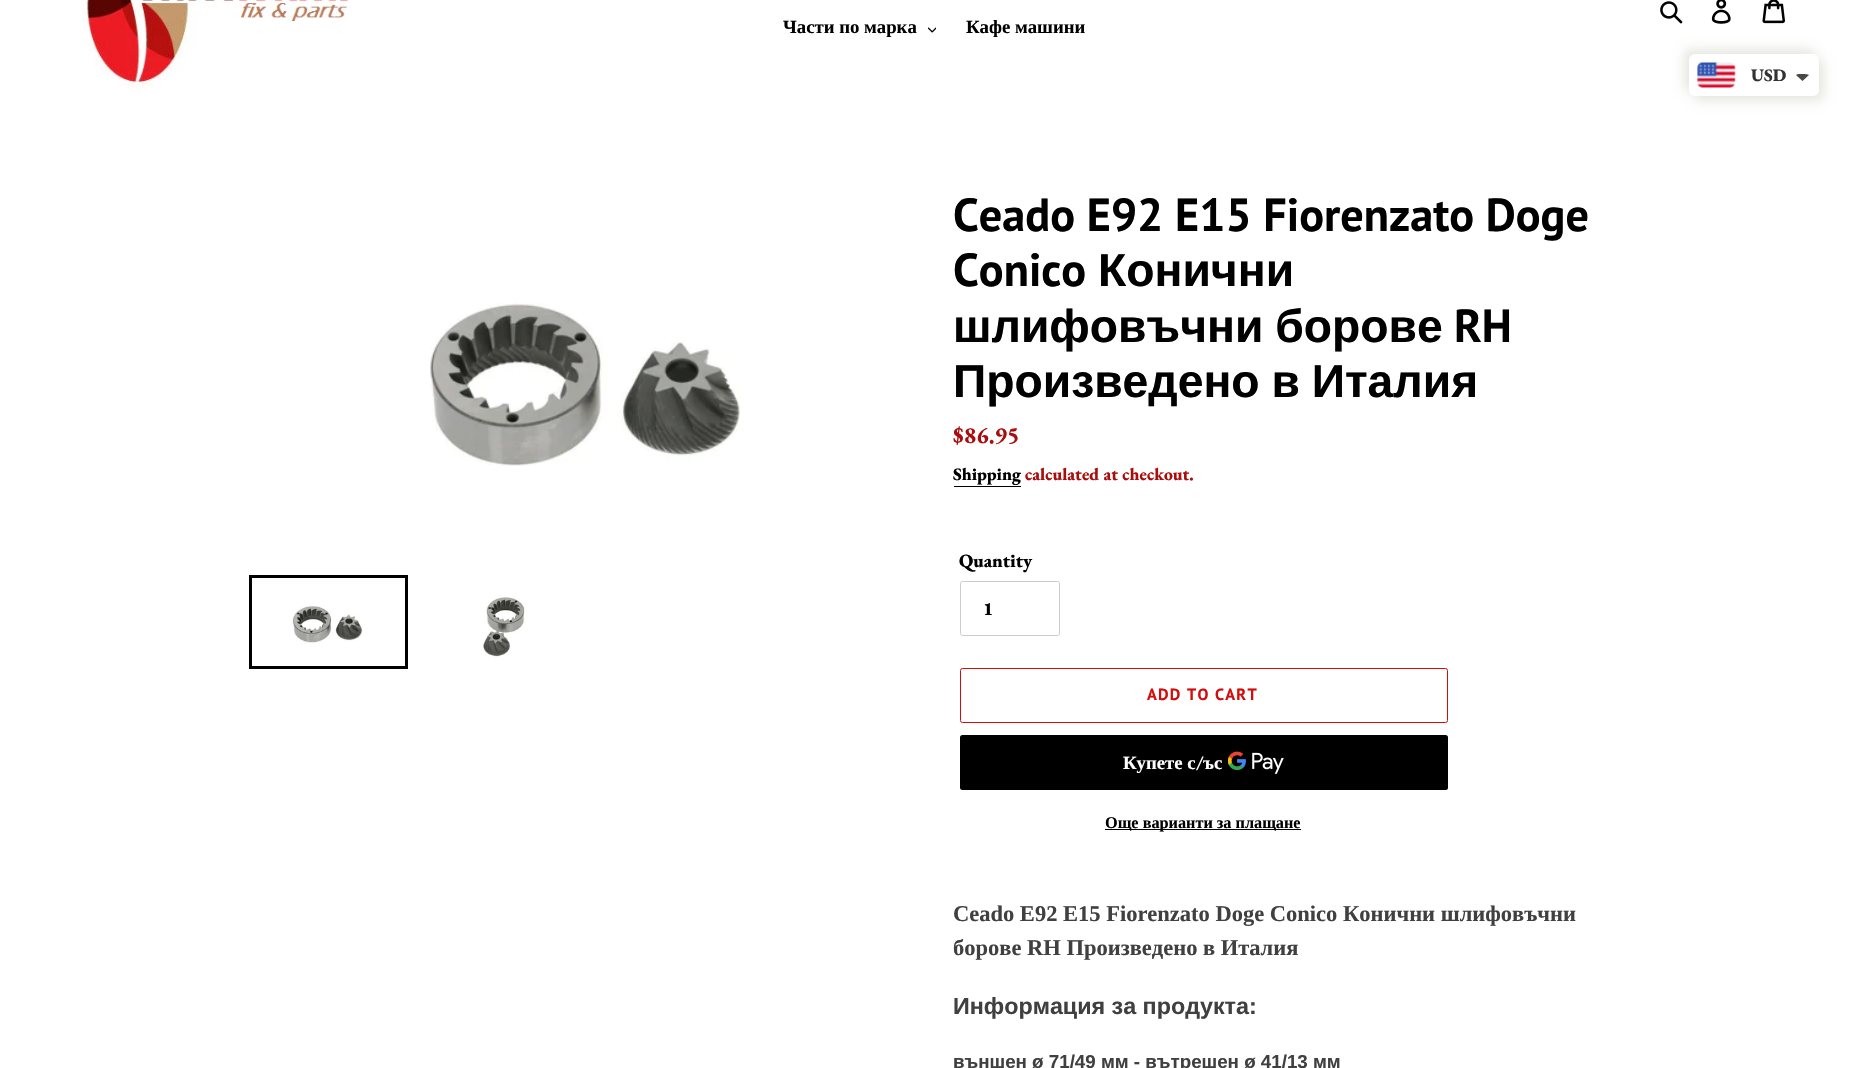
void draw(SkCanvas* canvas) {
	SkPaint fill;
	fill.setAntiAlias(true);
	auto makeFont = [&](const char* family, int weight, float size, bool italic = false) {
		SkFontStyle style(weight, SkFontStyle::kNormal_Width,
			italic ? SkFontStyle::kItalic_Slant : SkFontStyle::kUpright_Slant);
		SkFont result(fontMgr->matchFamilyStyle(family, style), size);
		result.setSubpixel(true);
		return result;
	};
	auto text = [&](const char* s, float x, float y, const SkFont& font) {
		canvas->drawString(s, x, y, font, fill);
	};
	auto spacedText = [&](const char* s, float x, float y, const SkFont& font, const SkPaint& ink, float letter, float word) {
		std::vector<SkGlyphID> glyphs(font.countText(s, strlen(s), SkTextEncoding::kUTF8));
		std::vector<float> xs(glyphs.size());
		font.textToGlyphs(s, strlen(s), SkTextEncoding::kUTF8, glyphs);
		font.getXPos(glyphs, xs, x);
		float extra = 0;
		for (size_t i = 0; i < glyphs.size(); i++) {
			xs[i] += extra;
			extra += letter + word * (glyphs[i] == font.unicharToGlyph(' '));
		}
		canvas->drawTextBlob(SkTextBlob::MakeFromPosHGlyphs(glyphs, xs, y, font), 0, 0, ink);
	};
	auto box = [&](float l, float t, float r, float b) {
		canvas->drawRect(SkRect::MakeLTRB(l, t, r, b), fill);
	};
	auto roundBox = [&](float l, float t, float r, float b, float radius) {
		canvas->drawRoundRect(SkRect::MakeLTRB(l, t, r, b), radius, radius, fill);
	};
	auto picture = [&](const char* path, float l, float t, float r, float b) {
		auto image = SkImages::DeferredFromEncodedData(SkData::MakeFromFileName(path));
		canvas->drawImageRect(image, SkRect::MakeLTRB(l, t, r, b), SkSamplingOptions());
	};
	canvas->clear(0xFFFFFFFF);
	picture("image0.png", 82, 0, 349, 92);
	picture("image1.png", 1660, 1, 1683, 24);
	picture("image2.png", 1711, 0, 1731, 24);
	picture("image3.png", 1762, 0, 1785, 24);
	picture("image4.png", 928, 27, 936, 33);
	fill.setColor(0xFFE8E8E2);
	fill.setMaskFilter(SkMaskFilter::MakeBlur(kNormal_SkBlurStyle, 5.5f));
	canvas->drawRoundRect(SkRect::MakeLTRB(1684, 49, 1814, 91), 6, 6, fill);
	fill.setMaskFilter(nullptr);
	fill.setMaskFilter(SkMaskFilter::MakeBlur(kNormal_SkBlurStyle, 5.5f));
	canvas->drawRoundRect(SkRect::MakeLTRB(1694, 59, 1824, 101), 6, 6, fill);
	fill.setMaskFilter(nullptr);
	fill.setColor(0xFFFFFFFF);
	roundBox(1689, 54, 1819, 96, 6);
	picture("image5.png", 1697, 62, 1736, 88);
	fill.setColor(0xFF474942);
	canvas->drawPath(SkPathBuilder().moveTo(1799, 74).cubicTo(1801.5f, 74, 1807, 73.5f, 1809, 75).lineTo(1802.5f, 81).lineTo(1796, 75).cubicTo(1797, 74.5f, 1798, 74, 1799, 74).close().detach(), fill);
	picture("image6.png", 430, 302, 743, 466);
	fill.setStyle(SkPaint::kStroke_Style);
	fill.setStrokeWidth(3);
	fill.setColor(0xFF000000);
	canvas->drawRect(SkRect::MakeLTRB(250.5f, 576.5f, 406.5f, 667.5f), fill);
	picture("image7.png", 292, 605, 363, 644);
	picture("image8.png", 483, 597, 525, 658);
	fill.setStyle(SkPaint::kFill_Style);
	box(954, 486, 1021, 487);
	fill.setStyle(SkPaint::kStroke_Style);
	fill.setStrokeWidth(1);
	fill.setColor(0xFFCCCCCC);
	canvas->drawRoundRect(SkRect::MakeLTRB(960.5f, 581.5f, 1059.5f, 635.5f), 2, 2, fill);
	fill.setColor(0xFFD40C0C);
	canvas->drawRoundRect(SkRect::MakeLTRB(960.5f, 668.5f, 1447.5f, 722.5f), 2, 2, fill);
	fill.setStyle(SkPaint::kFill_Style);
	fill.setColor(0xFF000000);
	roundBox(960, 735, 1448, 790, 2.5f);
	picture("image9.png", 1228, 751, 1284, 774);
	box(1105, 829, 1301, 830);
	auto font1 = makeFont("Liberation Serif", 700, 18.75f);
	text("Части по марка", 783, 33, font1);
	text("Кафе машини", 966, 33, font1);
	auto font2 = makeFont("EB Garamond", 800, 17.5f);
	fill.setColor(0xFF333333);
	text("USD", 1751, 81, font2);
	auto font3 = makeFont("PT Sans", 700, 46.25f);
	fill.setColor(0xFF000000);
	text("Ceado E92 E15 Fiorenzato Doge", 953, 231, font3);
	text("Conico", 953, 286, font3);
	auto font4 = makeFont("Liberation Sans", 700, 46.25f);
	text("Конични", 1098, 286, font4);
	spacedText("шлифовъчни борове", 953, 342, font4, fill, 0, -1);
	text("RH", 1454, 342, font3);
	spacedText("Произведено в Италия", 953, 397, font4, fill, 0, -1);
	auto font5 = makeFont("EB Garamond", 700, 23.5f);
	fill.setColor(0xFFA90D0D);
	text("$86.95", 953, 443, font5);
	fill.setColor(0xFF000000);
	text("Shipping", 953, 480, font2);
	fill.setColor(0xFFA90D0D);
	text("calculated at checkout.", 1025, 480, font2);
	auto font6 = makeFont("EB Garamond", 800, 18.75f);
	fill.setColor(0xFF000000);
	text("Quantity", 959, 567, font6);
	text("1", 983, 615, font6);
	auto font7 = makeFont("PT Sans", 700, 16.25f);
	fill.setColor(0xFFD40C0C);
	spacedText("ADD TO CART", 1147, 700, font7, fill, 1.25f, 0);
	fill.setColor(0xFFFFFFFF);
	text("Купете с", 1123, 769, font1);
	text("/", 1196, 769, font6);
	text("ъс", 1203, 769, font1);
	auto font8 = makeFont("Liberation Serif", 700, 16.25f);
	fill.setColor(0xFF000000);
	text("Още варианти за плащане", 1105, 828, font8);
	auto font9 = makeFont("Liberation Serif", 700, 22.5f);
	fill.setColor(0xFF404040);
	text("Ceado E92 E15 Fiorenzato Doge Conico Конични шлифовъчни", 953, 921, font9);
	text("борове RH Произведено в Италия", 953, 955, font9);
	auto font10 = makeFont("Liberation Sans", 700, 23.3f);
	text("Информация за продукта:", 953, 1014, font10);
	auto font11 = makeFont("Liberation Sans", 700, 18.75f);
	text("външен ø 71/49 мм - вътрешен ø 41/13 мм", 953, 1068, font11);
}
